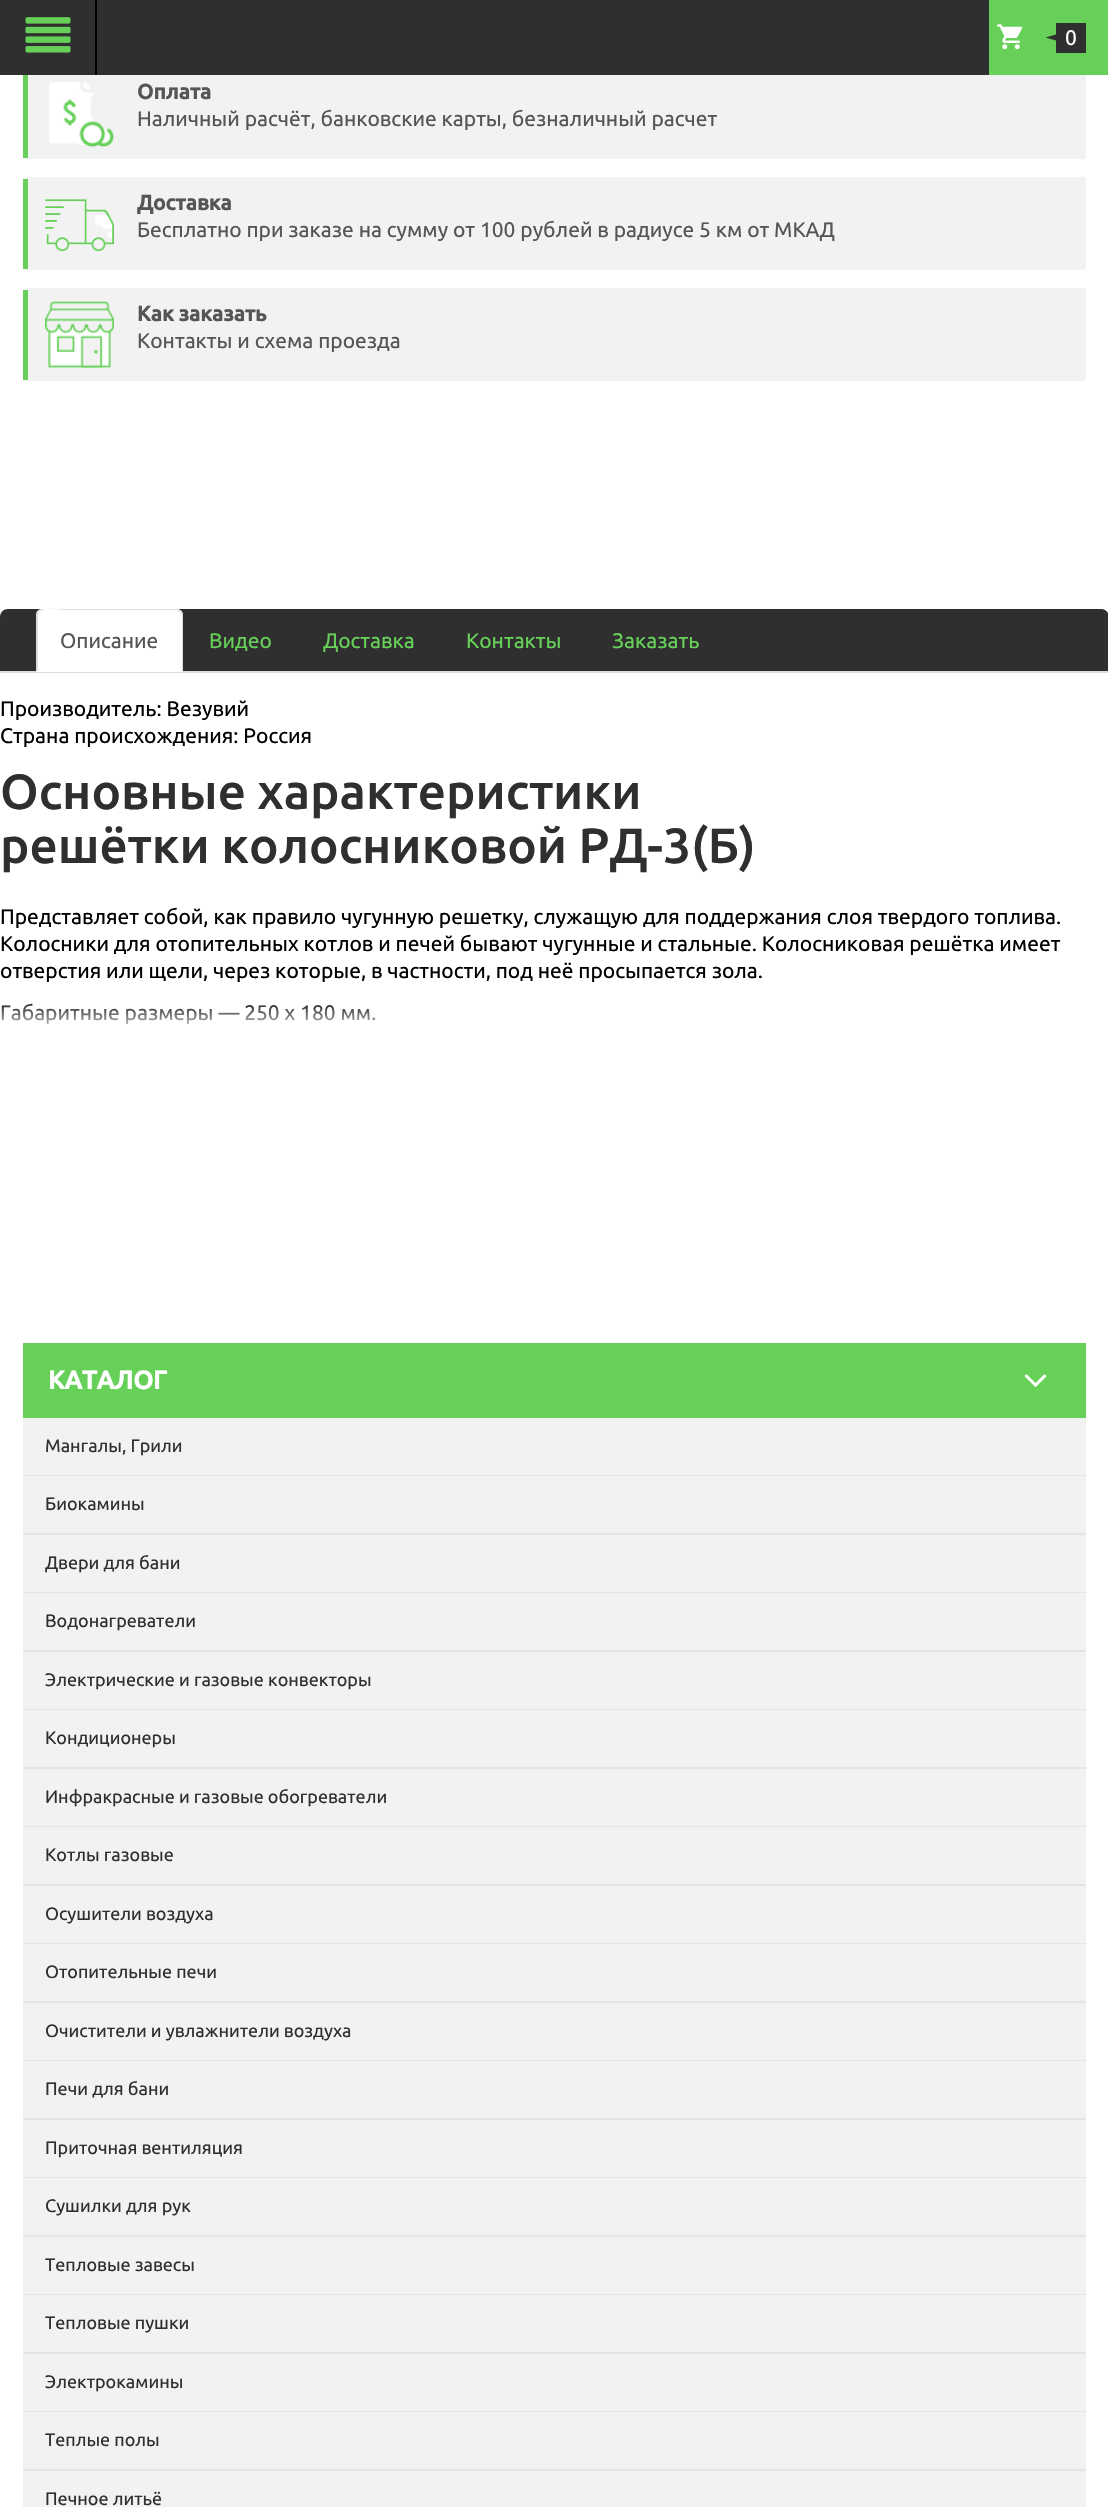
void draw(SkCanvas* canvas) {
	SkPaint fill;
	fill.setAntiAlias(true);
	auto makeFont = [&](const char* family, int weight, float size, bool italic = false) {
		SkFontStyle style(weight, SkFontStyle::kNormal_Width,
			italic ? SkFontStyle::kItalic_Slant : SkFontStyle::kUpright_Slant);
		SkFont result(fontMgr->matchFamilyStyle(family, style), size);
		result.setSubpixel(true);
		return result;
	};
	auto text = [&](const char* s, float x, float y, const SkFont& font) {
		canvas->drawString(s, x, y, font, fill);
	};
	auto box = [&](float l, float t, float r, float b) {
		canvas->drawRect(SkRect::MakeLTRB(l, t, r, b), fill);
	};
	auto roundBox = [&](float l, float t, float r, float b, float radius) {
		canvas->drawRoundRect(SkRect::MakeLTRB(l, t, r, b), radius, radius, fill);
	};
	auto picture = [&](const char* path, float l, float t, float r, float b) {
		auto image = SkImages::DeferredFromEncodedData(SkData::MakeFromFileName(path));
		canvas->drawImageRect(image, SkRect::MakeLTRB(l, t, r, b), SkSamplingOptions());
	};
	canvas->clear(0xFFFFFFFF);
	fill.setColor(0xFFF2F2F2);
	roundBox(23, 66, 1086, 159, 3);
	fill.setColor(0xFF66D059);
	box(23, 68, 28, 158);
	fill.setColor(0xFF2F2F2F);
	box(0, 0, 989, 75);
	fill.setColor(0xFF000000);
	box(95, 0, 97, 75);
	picture("image0.png", 25, 17, 71, 53);
	fill.setColor(0xFF66D059);
	box(989, 0, 1108, 75);
	picture("image1.png", 997, 24, 1023, 50);
	fill.setColor(0xFF2F2F2F);
	box(1056, 23, 1086, 53);
	canvas->drawPath(SkPathBuilder().moveTo(1056, 34.5f).lineTo(1056, 40.5f).lineTo(1045.5f, 37.5f).close().detach(), fill);
	picture("image2.png", 49, 82, 114, 147);
	fill.setColor(0xFFF2F2F2);
	roundBox(23, 177, 1086, 270, 3);
	fill.setColor(0xFF66D059);
	box(23, 179, 28, 269);
	picture("image3.png", 45, 199, 114, 252);
	fill.setColor(0xFFF2F2F2);
	roundBox(23, 288, 1086, 381, 3);
	fill.setColor(0xFF66D059);
	box(23, 290, 28, 380);
	picture("image4.png", 45, 301, 114, 368);
	fill.setColor(0xFF2F2F2F);
	canvas->drawPath(SkPathBuilder().moveTo(8, 609).lineTo(1101, 609).cubicTo(1105.5f, 609, 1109, 612.5f, 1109, 617).lineTo(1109, 672).lineTo(0, 672).lineTo(0, 617).cubicTo(0, 612.5f, 3.5f, 609, 8, 609).close().detach(), fill);
	fill.setColor(0xFFDDDDDD);
	box(0, 671, 1108, 673);
	fill.setColor(0xFFFFFFFF);
	canvas->drawPath(SkPathBuilder().moveTo(42, 609).lineTo(177, 609).cubicTo(180.5f, 609, 183, 611.5f, 183, 615).lineTo(183, 672).lineTo(36, 672).lineTo(36, 615).cubicTo(36, 611.5f, 38.5f, 609, 42, 609).close().detach(), fill);
	fill.setColor(0xFFDDDDDD);
	canvas->drawPath(SkPathBuilder().moveTo(42, 609).cubicTo(40, 609, 39, 610, 38, 611).lineTo(39, 612).cubicTo(43, 606, 64, 610, 64, 610).lineTo(177, 610).lineTo(180, 612).lineTo(181, 611).cubicTo(180, 610, 178, 609, 177, 609).close().detach(), fill);
	canvas->drawPath(SkPathBuilder().moveTo(183, 672).lineTo(183, 615).cubicTo(183, 614, 182, 612, 181, 611).lineTo(180, 612).lineTo(182, 615).lineTo(182, 670).lineTo(181, 670).close().detach(), fill);
	canvas->drawPath(SkPathBuilder().moveTo(36, 672).lineTo(38, 670).lineTo(38, 615).lineTo(39, 612).lineTo(38, 611).cubicTo(37, 612, 36, 614, 36, 615).close().detach(), fill);
	fill.setColor(0xFF66D059);
	box(23, 1343, 1086, 1418);
	picture("image5.png", 1024, 1374, 1047, 1387);
	fill.setColor(0xFFF2F2F2);
	box(23, 1418, 1086, 1475);
	fill.setColor(0xFFE5E5E5);
	box(23, 1475, 1086, 1476);
	fill.setColor(0xFFF2F2F2);
	box(23, 1476, 1086, 1533);
	fill.setColor(0xFFE5E5E5);
	box(23, 1533, 1086, 1535);
	fill.setColor(0xFFF2F2F2);
	box(23, 1535, 1086, 1592);
	fill.setColor(0xFFE5E5E5);
	box(23, 1592, 1086, 1593);
	fill.setColor(0xFFF2F2F2);
	box(23, 1593, 1086, 1650);
	fill.setColor(0xFFE5E5E5);
	box(23, 1650, 1086, 1652);
	fill.setColor(0xFFF2F2F2);
	box(23, 1652, 1086, 1709);
	fill.setColor(0xFFE5E5E5);
	box(23, 1709, 1086, 1710);
	fill.setColor(0xFFF2F2F2);
	box(23, 1710, 1086, 1767);
	fill.setColor(0xFFE5E5E5);
	box(23, 1767, 1086, 1769);
	fill.setColor(0xFFF2F2F2);
	box(23, 1769, 1086, 1826);
	fill.setColor(0xFFE5E5E5);
	box(23, 1826, 1086, 1827);
	fill.setColor(0xFFF2F2F2);
	box(23, 1827, 1086, 1884);
	fill.setColor(0xFFE5E5E5);
	box(23, 1884, 1086, 1886);
	fill.setColor(0xFFF2F2F2);
	box(23, 1886, 1086, 1943);
	fill.setColor(0xFFE5E5E5);
	box(23, 1943, 1086, 1944);
	fill.setColor(0xFFF2F2F2);
	box(23, 1944, 1086, 2001);
	fill.setColor(0xFFE5E5E5);
	box(23, 2001, 1086, 2003);
	fill.setColor(0xFFF2F2F2);
	box(23, 2003, 1086, 2060);
	fill.setColor(0xFFE5E5E5);
	box(23, 2060, 1086, 2061);
	fill.setColor(0xFFF2F2F2);
	box(23, 2061, 1086, 2118);
	fill.setColor(0xFFE5E5E5);
	box(23, 2118, 1086, 2120);
	fill.setColor(0xFFF2F2F2);
	box(23, 2120, 1086, 2177);
	fill.setColor(0xFFE5E5E5);
	box(23, 2177, 1086, 2178);
	fill.setColor(0xFFF2F2F2);
	box(23, 2178, 1086, 2235);
	fill.setColor(0xFFE5E5E5);
	box(23, 2235, 1086, 2237);
	fill.setColor(0xFFF2F2F2);
	box(23, 2237, 1086, 2294);
	fill.setColor(0xFFE5E5E5);
	box(23, 2294, 1086, 2295);
	fill.setColor(0xFFF2F2F2);
	box(23, 2295, 1086, 2352);
	fill.setColor(0xFFE5E5E5);
	box(23, 2352, 1086, 2354);
	fill.setColor(0xFFF2F2F2);
	box(23, 2354, 1086, 2411);
	fill.setColor(0xFFE5E5E5);
	box(23, 2411, 1086, 2412);
	fill.setColor(0xFFF2F2F2);
	box(23, 2412, 1086, 2469);
	fill.setColor(0xFFE5E5E5);
	box(23, 2469, 1086, 2471);
	fill.setColor(0xFFF2F2F2);
	box(23, 2471, 1086, 2507);
	auto font1 = makeFont("Ubuntu", 400, 21);
	fill.setColor(0xFFFFFFFF);
	text("0", 1065, 45, font1);
	auto font2 = makeFont("Ubuntu", 700, 21);
	fill.setColor(0xFF555555);
	text("Оплата", 137, 99, font2);
	text("Наличный расчёт, банковские карты, безналичный расчет", 137, 126, font1);
	text("Доставка", 137, 210, font2);
	text("Бесплатно при заказе на сумму от 100 рублей в радиусе 5 км от МКАД", 137, 237, font1);
	text("Как заказать", 137, 321, font2);
	text("Контакты и схема проезда", 137, 348, font1);
	text("Описание", 60, 648, font1);
	fill.setColor(0xFF66D059);
	text("Видео", 209, 648, font1);
	text("Доставка", 323, 648, font1);
	text("Контакты", 466, 648, font1);
	text("Заказать", 612, 648, font1);
	fill.setColor(0xFF000000);
	text("Производитель: Везувий", 0, 716, font1);
	text("Страна происхождения: Россия", 0, 743, font1);
	auto font3 = makeFont("Ubuntu", 500, 49.5f);
	fill.setColor(0xFF2F2F2F);
	text("Основные характеристики", 0, 809, font3);
	text("решётки колосниковой РД-3(Б)", 0, 863, font3);
	fill.setColor(0xFF000000);
	text("Представляет собой, как правило чугунную решетку, служащую для поддержания слоя твердого топлива.", 0, 924, font1);
	text("Колосники для отопительных котлов и печей бывают чугунные и стальные. Колосниковая решётка имеет", 0, 951, font1);
	text("отверстия или щели, через которые, в частности, под неё просыпается зола.", 0, 978, font1);
	text("Габаритные размеры — 250 х 180 мм.", 0, 1020, font1);
	{
		const SkColor colors[] = {0x00FFFFFF, 0xFFFFFFFF};
		const float stops[] = {0, 1};
		const SkPoint ends[] = {{554, 998}, {554, 1035}};
		fill.setShader(SkGradientShader::MakeLinear(ends, colors, stops, 2, SkTileMode::kClamp));
		fill.setAlpha(255);
	}
	box(1, 1003, 376, 1024);
	auto font4 = makeFont("Ubuntu", 700, 25.5f);
	fill.setShader(nullptr);
	fill.setColor(0xFFFFFFFF);
	text("КАТАЛОГ", 48, 1389, font4);
	auto font5 = makeFont("Ubuntu", 400, 18);
	fill.setColor(0xFF2F2F2F);
	text("Мангалы, Грили", 45, 1452, font5);
	text("Биокамины", 45, 1510, font5);
	text("Двери для бани", 45, 1569, font5);
	text("Водонагреватели", 45, 1627, font5);
	text("Электрические и газовые конвекторы", 45, 1686, font5);
	text("Кондиционеры", 45, 1744, font5);
	text("Инфракрасные и газовые обогреватели", 45, 1803, font5);
	text("Котлы газовые", 45, 1861, font5);
	text("Осушители воздуха", 45, 1920, font5);
	text("Отопительные печи", 45, 1978, font5);
	text("Очистители и увлажнители воздуха", 45, 2037, font5);
	text("Печи для бани", 45, 2095, font5);
	text("Приточная вентиляция", 45, 2154, font5);
	text("Сушилки для рук", 45, 2212, font5);
	text("Тепловые завесы", 45, 2271, font5);
	text("Тепловые пушки", 45, 2329, font5);
	text("Электрокамины", 45, 2388, font5);
	text("Теплые полы", 45, 2446, font5);
	text("Печное литьё", 45, 2505, font5);
}
